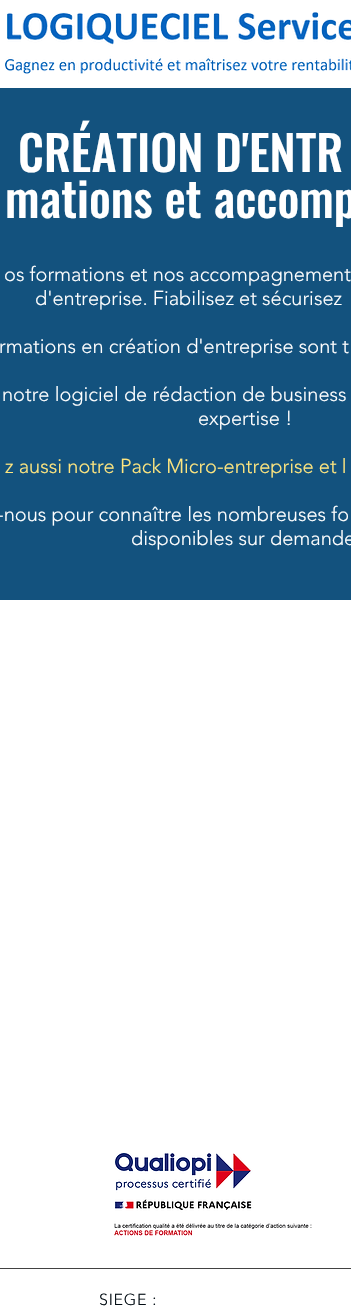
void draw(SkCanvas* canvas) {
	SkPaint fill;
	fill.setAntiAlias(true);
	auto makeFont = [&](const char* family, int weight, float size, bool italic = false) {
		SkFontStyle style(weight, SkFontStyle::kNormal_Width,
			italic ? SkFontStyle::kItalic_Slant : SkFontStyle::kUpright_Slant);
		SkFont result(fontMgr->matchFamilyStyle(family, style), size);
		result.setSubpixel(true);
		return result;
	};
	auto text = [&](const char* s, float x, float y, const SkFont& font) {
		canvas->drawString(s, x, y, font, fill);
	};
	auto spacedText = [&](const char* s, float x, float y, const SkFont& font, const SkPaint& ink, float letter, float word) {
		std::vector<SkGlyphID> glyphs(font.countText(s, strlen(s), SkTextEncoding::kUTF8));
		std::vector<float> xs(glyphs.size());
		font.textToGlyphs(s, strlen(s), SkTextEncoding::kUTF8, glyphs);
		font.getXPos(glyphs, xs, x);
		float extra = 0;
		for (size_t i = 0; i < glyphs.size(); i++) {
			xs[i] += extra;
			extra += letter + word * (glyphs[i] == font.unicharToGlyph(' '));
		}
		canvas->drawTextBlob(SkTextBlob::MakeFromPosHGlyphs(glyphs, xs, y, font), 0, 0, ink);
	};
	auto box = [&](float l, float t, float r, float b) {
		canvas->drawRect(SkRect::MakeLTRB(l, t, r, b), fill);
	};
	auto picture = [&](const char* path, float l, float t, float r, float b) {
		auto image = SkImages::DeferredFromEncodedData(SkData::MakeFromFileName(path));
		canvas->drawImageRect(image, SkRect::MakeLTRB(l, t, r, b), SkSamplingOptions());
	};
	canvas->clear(0xFFFFFFFF);
	picture("image0.png", 5, 12, 351, 74);
	fill.setColor(0xFF13527E);
	box(0, 88, 351, 600);
	picture("image1.png", 114, 1153, 312, 1236);
	fill.setColor(0xFF424242);
	box(0, 1268, 351, 1269);
	auto font1 = makeFont("Oswald", 500, 48);
	fill.setColor(0xFFFFFFFF);
	text("CRÉATION D'ENTR", 18, 172, font1);
	text("mations et accomp", 5, 218, font1);
	auto font2 = makeFont("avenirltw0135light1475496", 300, 20);
	text("os formations et nos accompagnement", 4, 281, font2);
	text("d'entreprise. Fiabilisez et sécurisez", 35, 305, font2);
	text("rmations en création d'entreprise sont t", -1, 353, font2);
	text("notre logiciel de rédaction de business", 2, 401, font2);
	text("expertise !", 198, 425, font2);
	fill.setColor(0xFFFFE67F);
	text("z aussi notre Pack Micro-entreprise et l", 5, 473, font2);
	fill.setColor(0xFFFFFFFF);
	text("-nous pour connaître les nombreuses fo", -3, 521, font2);
	text("disponibles sur demande", 131, 545, font2);
	auto font3 = makeFont("avenirltw0135light1475496", 300, 16);
	fill.setColor(0xFF030D14);
	spacedText("SIEGE :", 99, 1305, font3, fill, 0.75f, 0);
}
